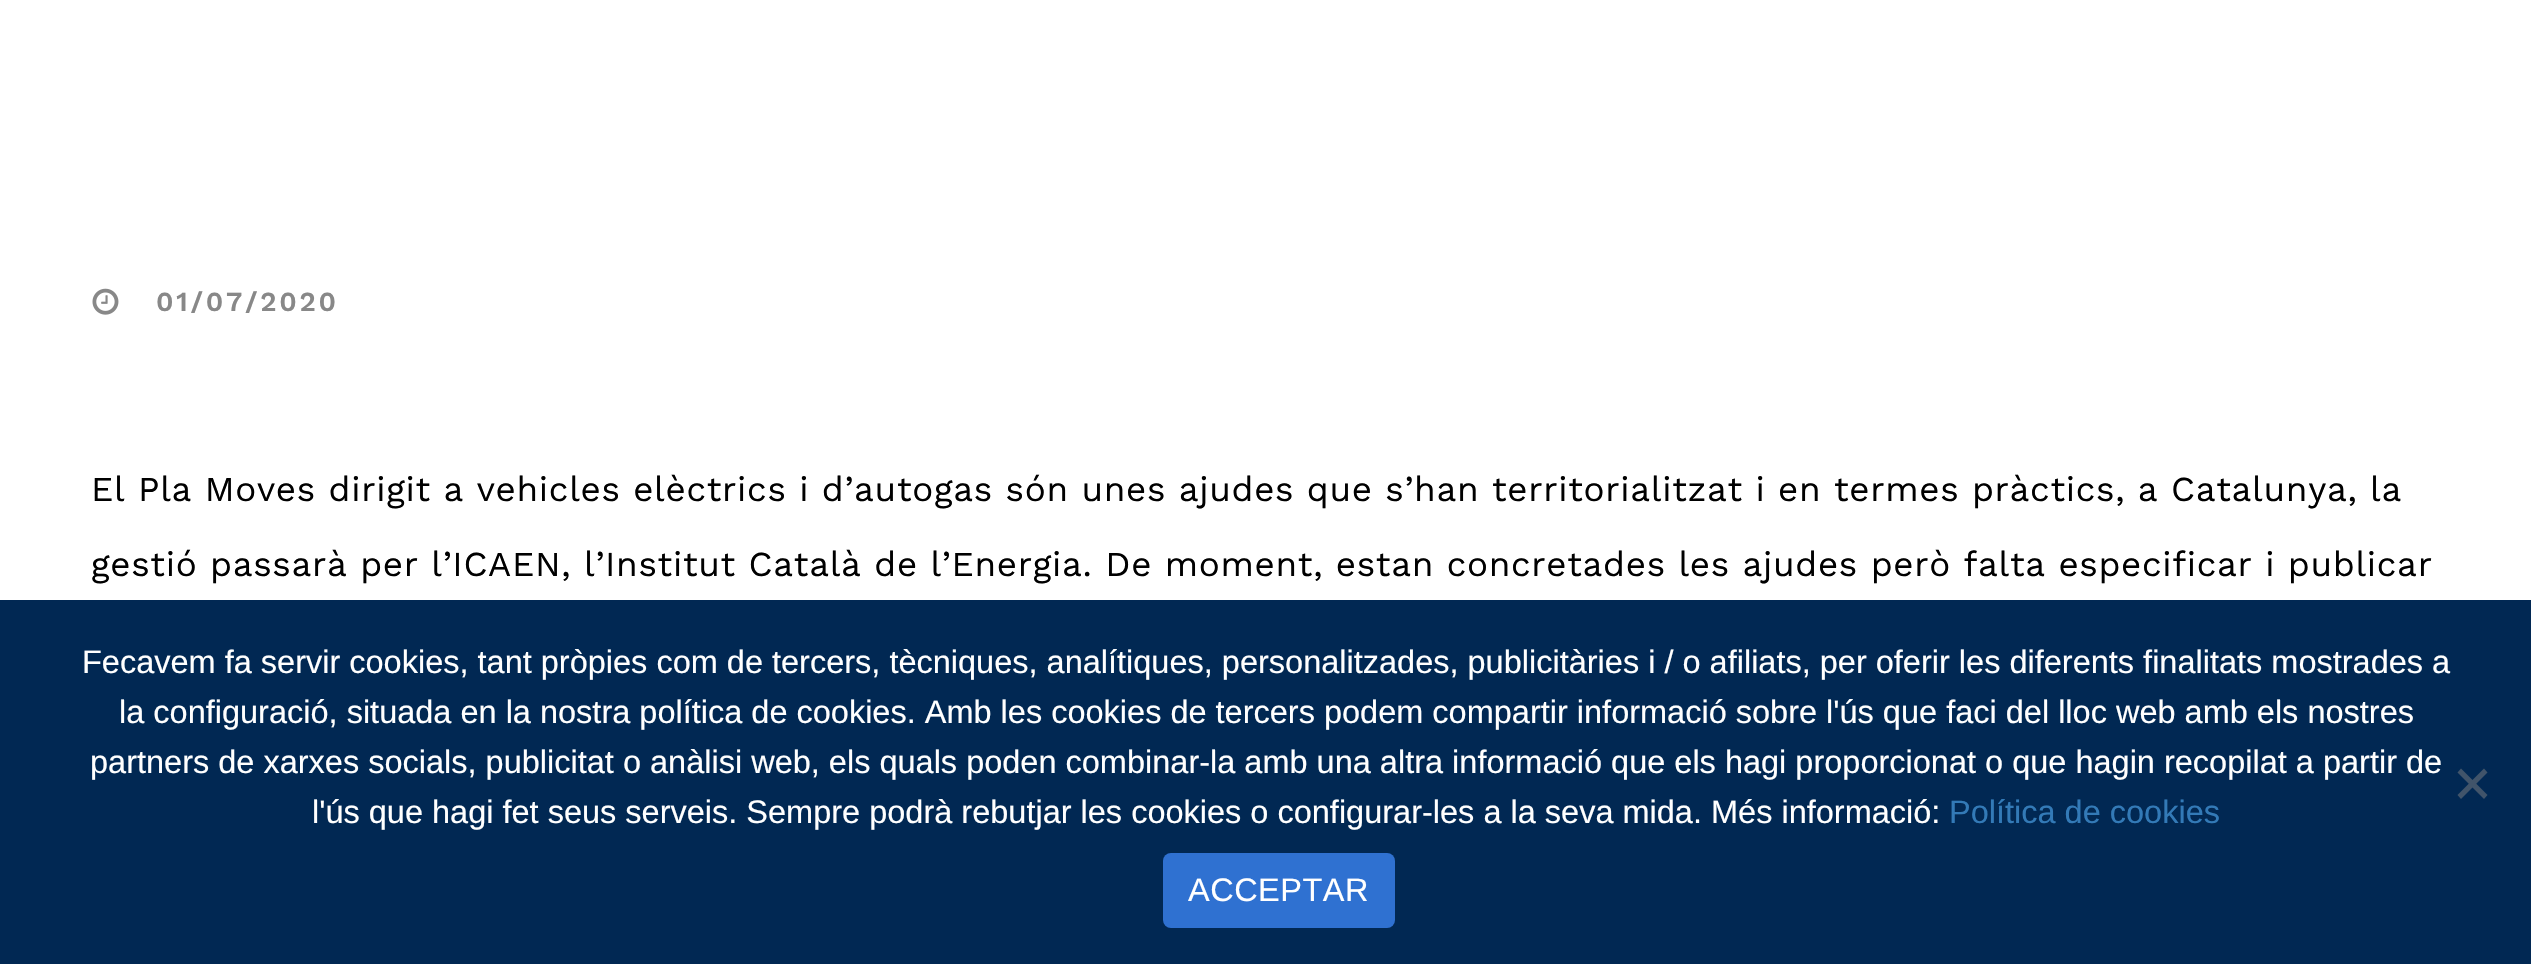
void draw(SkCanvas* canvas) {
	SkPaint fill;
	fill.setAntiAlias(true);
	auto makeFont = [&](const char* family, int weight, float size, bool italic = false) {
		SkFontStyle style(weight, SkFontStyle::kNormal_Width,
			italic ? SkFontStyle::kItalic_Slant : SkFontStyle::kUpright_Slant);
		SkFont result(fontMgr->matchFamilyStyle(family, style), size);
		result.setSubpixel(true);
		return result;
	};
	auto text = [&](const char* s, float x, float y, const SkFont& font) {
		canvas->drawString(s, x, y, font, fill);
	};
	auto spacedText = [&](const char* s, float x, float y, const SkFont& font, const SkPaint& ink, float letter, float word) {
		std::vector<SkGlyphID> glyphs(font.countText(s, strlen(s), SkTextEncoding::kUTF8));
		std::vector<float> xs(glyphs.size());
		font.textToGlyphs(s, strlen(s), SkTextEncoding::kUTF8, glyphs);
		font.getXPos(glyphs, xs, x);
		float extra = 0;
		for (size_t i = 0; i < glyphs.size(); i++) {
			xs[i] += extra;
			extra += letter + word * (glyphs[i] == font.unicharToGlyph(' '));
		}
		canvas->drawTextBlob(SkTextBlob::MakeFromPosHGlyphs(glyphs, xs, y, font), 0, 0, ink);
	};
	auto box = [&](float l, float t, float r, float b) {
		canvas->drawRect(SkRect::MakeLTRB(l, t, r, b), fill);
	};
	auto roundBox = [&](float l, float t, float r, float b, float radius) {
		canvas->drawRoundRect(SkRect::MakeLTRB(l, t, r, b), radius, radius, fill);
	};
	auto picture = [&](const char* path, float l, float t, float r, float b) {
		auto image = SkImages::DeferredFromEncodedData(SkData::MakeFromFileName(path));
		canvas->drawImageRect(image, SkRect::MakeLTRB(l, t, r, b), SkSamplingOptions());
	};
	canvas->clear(0xFFFFFFFF);
	picture("image0.png", 92, 288, 119, 315);
	fill.setColor(0xFF012853);
	box(0, 600, 2531, 964);
	fill.setColor(0xFF41546A);
	canvas->drawPath(SkPathBuilder().moveTo(2484, 768.5f).lineTo(2487.5f, 772.5f).lineTo(2461, 799).lineTo(2457.5f, 795).close().detach(), fill);
	canvas->drawPath(SkPathBuilder().moveTo(2457.5f, 772.5f).lineTo(2461, 768.5f).lineTo(2487.5f, 795).lineTo(2484, 799).close().detach(), fill);
	fill.setColor(0xFF2F71D1);
	roundBox(1163, 853, 1395, 928, 8);
	auto font1 = makeFont("Work Sans", 600, 27.5f);
	fill.setColor(0xFF888888);
	spacedText("01/07/2020", 156, 311, font1, fill, 2.75f, 0);
	auto font2 = makeFont("Work Sans", 400, 35);
	fill.setColor(0xFF000000);
	spacedText("El Pla Moves dirigit a vehicles elèctrics i d’autogas són unes ajudes que s’han territorialitzat i en termes pràctics, a Catalunya, la", 91, 501, font2, fill, 0.7f, 0);
	spacedText("gestió passarà per l’ICAEN, l’Institut Català de l’Energia. De moment, estan concretades les ajudes però falta especificar i publicar", 91, 576, font2, fill, 0.7f, 0);
	auto font3 = makeFont("Liberation Sans", 400, 32.5f);
	fill.setColor(0xFFFFFFFF);
	text("Fecavem fa servir cookies, tant pròpies com de tercers, tècniques, analítiques, personalitzades, publicitàries i / o afiliats, per oferir les diferents finalitats mostrades a", 82, 673, font3);
	text("la configuració, situada en la nostra política de cookies. Amb les cookies de tercers podem compartir informació sobre l'ús que faci del lloc web amb els nostres", 119, 723, font3);
	text("partners de xarxes socials, publicitat o anàlisi web, els quals poden combinar-la amb una altra informació que els hagi proporcionat o que hagin recopilat a partir de", 90, 773, font3);
	text("l'ús que hagi fet seus serveis. Sempre podrà rebutjar les cookies o configurar-les a la seva mida. Més informació:", 312, 823, font3);
	fill.setColor(0xFF337AB7);
	text("Política de cookies", 1949, 823, font3);
	fill.setColor(0xFFFFFFFF);
	spacedText("ACCEPTAR", 1188, 901, font3, fill, 0.5f, 0);
}
